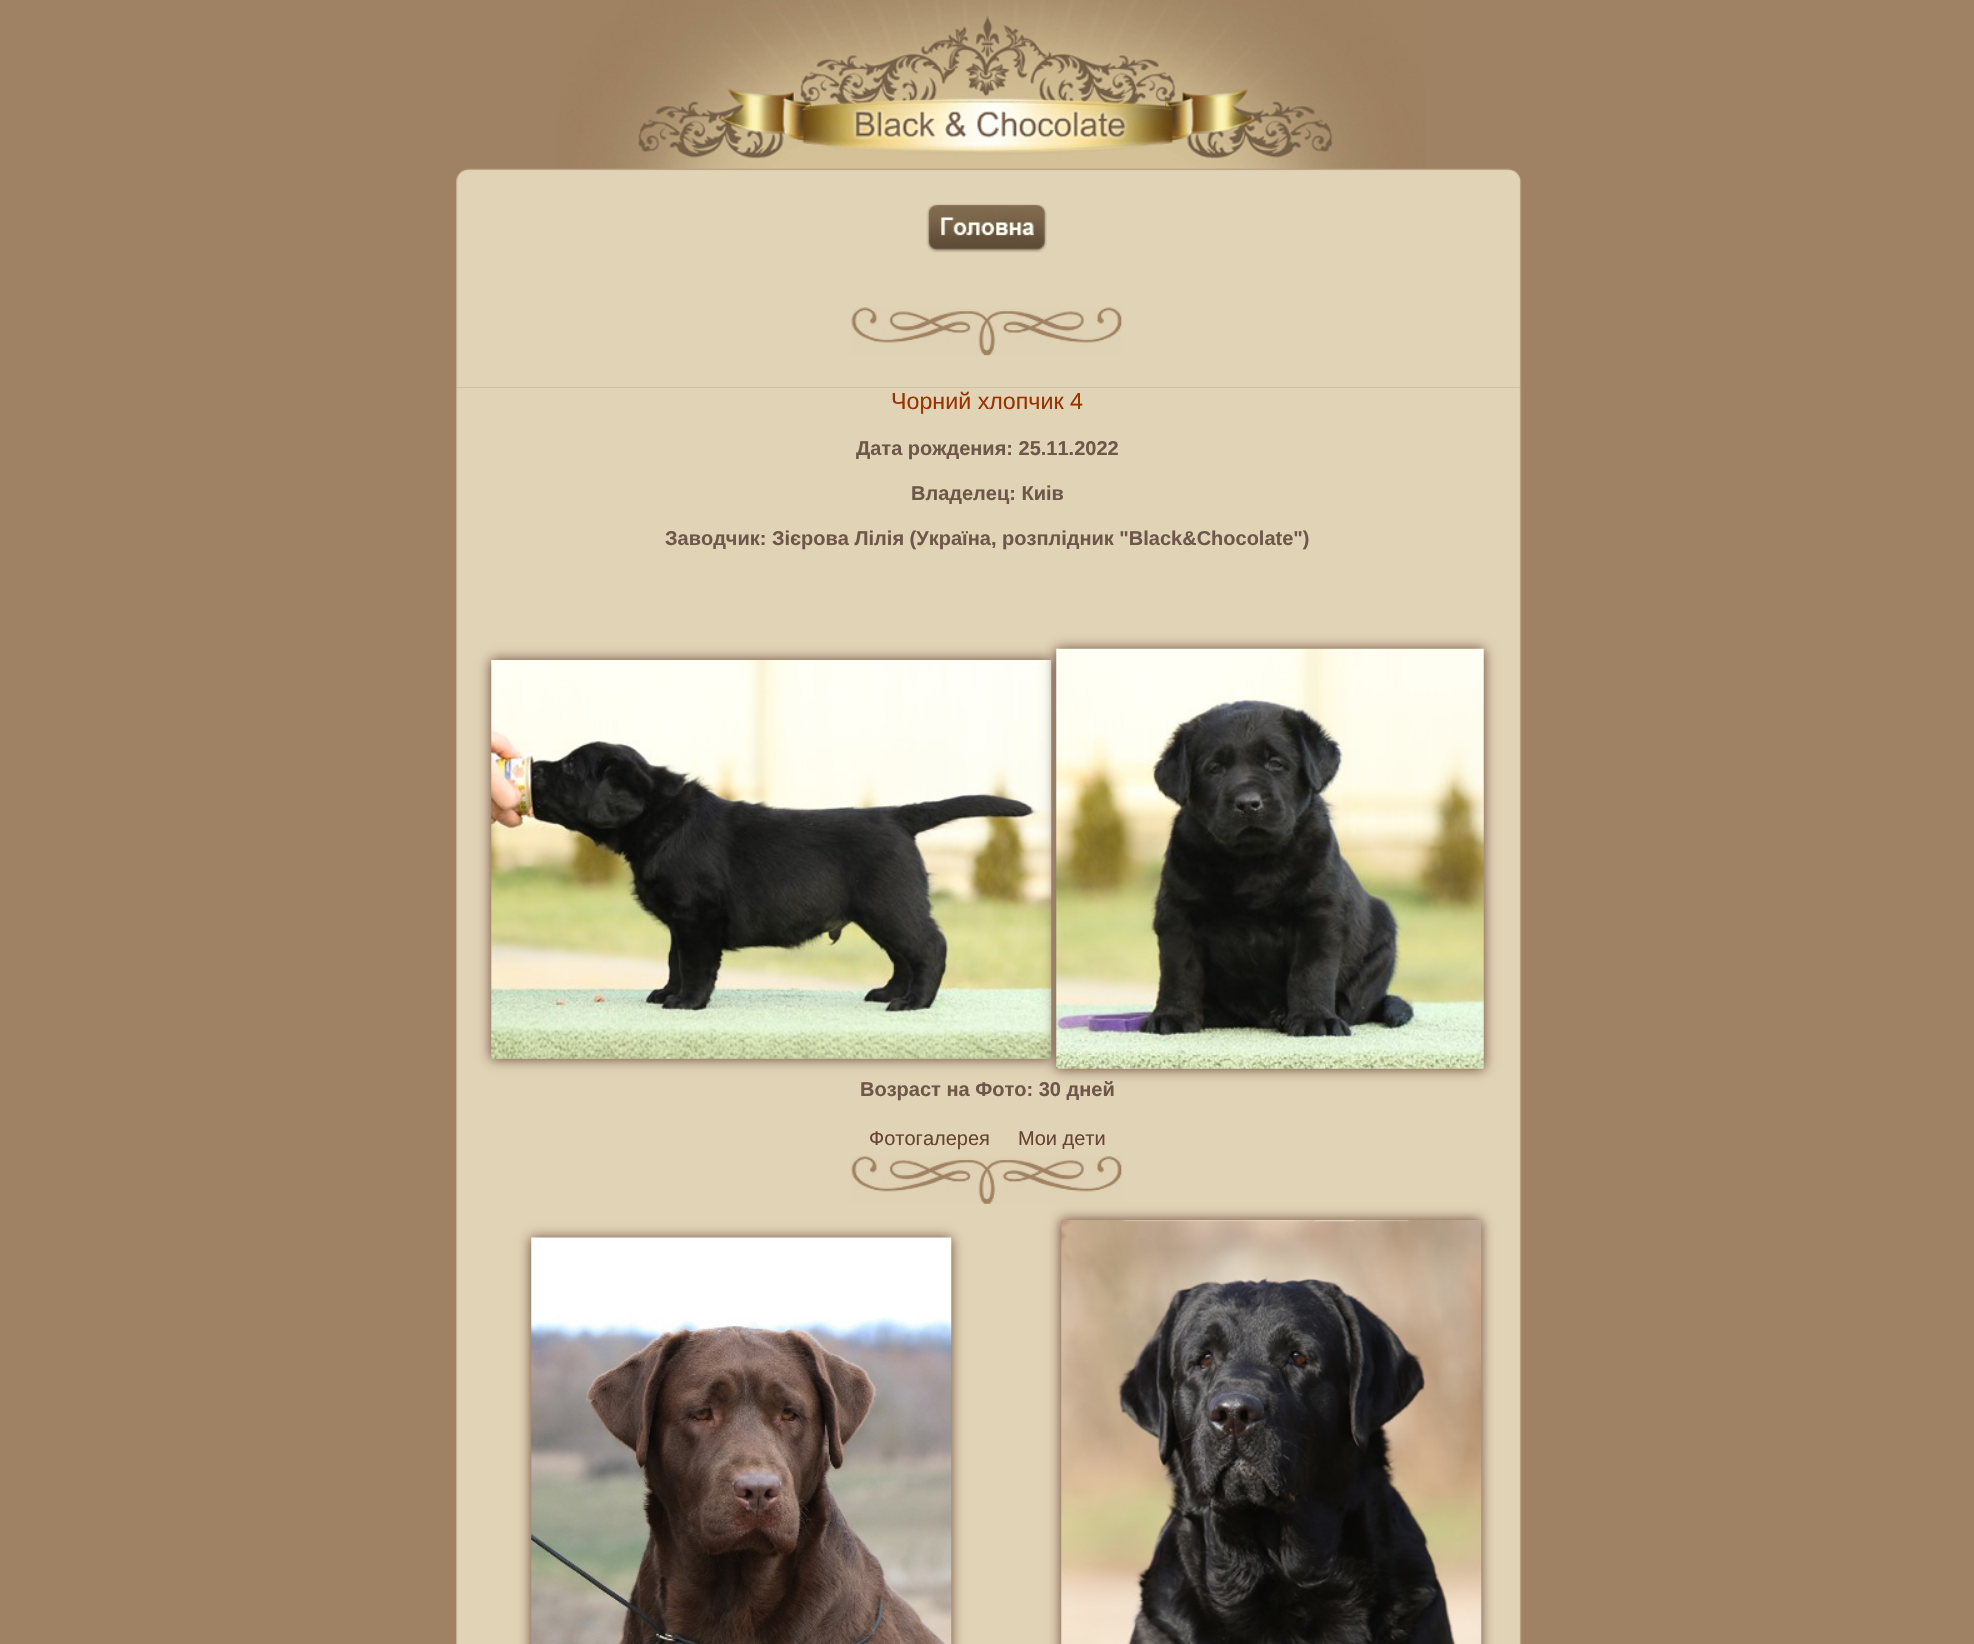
void draw(SkCanvas* canvas) {
	SkPaint fill;
	fill.setAntiAlias(true);
	auto makeFont = [&](const char* family, int weight, float size, bool italic = false) {
		SkFontStyle style(weight, SkFontStyle::kNormal_Width,
			italic ? SkFontStyle::kItalic_Slant : SkFontStyle::kUpright_Slant);
		SkFont result(fontMgr->matchFamilyStyle(family, style), size);
		result.setSubpixel(true);
		return result;
	};
	auto text = [&](const char* s, float x, float y, const SkFont& font) {
		canvas->drawString(s, x, y, font, fill);
	};
	auto picture = [&](const char* path, float l, float t, float r, float b) {
		auto image = SkImages::DeferredFromEncodedData(SkData::MakeFromFileName(path));
		canvas->drawImageRect(image, SkRect::MakeLTRB(l, t, r, b), SkSamplingOptions());
	};
	canvas->clear(0xFF9F8264);
	picture("image0.png", 555, 0, 1426, 169);
	picture("image1.png", 456, 168, 1522, 388);
	picture("image2.png", 926, 204, 1047, 253);
	picture("image3.png", 851, 307, 1122, 356);
	picture("image4.png", 456, 387, 1522, 1644);
	fill.setColor(0xFF664333);
	fill.setMaskFilter(SkMaskFilter::MakeBlur(kNormal_SkBlurStyle, 6));
	canvas->drawRect(SkRect::MakeLTRB(491, 660, 1051, 1059), fill);
	fill.setMaskFilter(nullptr);
	picture("image5.png", 491, 660, 1052, 1059);
	fill.setMaskFilter(SkMaskFilter::MakeBlur(kNormal_SkBlurStyle, 6));
	canvas->drawRect(SkRect::MakeLTRB(1056, 649, 1484, 1069), fill);
	fill.setMaskFilter(nullptr);
	picture("image6.png", 1056, 648, 1484, 1069);
	picture("image7.png", 851, 1156, 1122, 1204);
	fill.setMaskFilter(SkMaskFilter::MakeBlur(kNormal_SkBlurStyle, 6));
	canvas->drawRect(SkRect::MakeLTRB(531, 1238, 951, 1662), fill);
	fill.setMaskFilter(nullptr);
	picture("image8.png", 531, 1237, 952, 1644);
	fill.setMaskFilter(SkMaskFilter::MakeBlur(kNormal_SkBlurStyle, 6));
	canvas->drawRect(SkRect::MakeLTRB(1061, 1220, 1481, 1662), fill);
	fill.setMaskFilter(nullptr);
	picture("image9.png", 1061, 1220, 1482, 1644);
	auto font1 = makeFont("Liberation Sans", 400, 23.25f);
	fill.setColor(0xFF993300);
	text("Чорний хлопчик 4", 891, 409, font1);
	auto font2 = makeFont("Liberation Sans", 700, 20);
	fill.setColor(0xFF6F564A);
	text("Дата рождения: 25.11.2022", 856, 455, font2);
	text("Владелец: Киів", 911, 500, font2);
	text("Заводчик: Зієрова Лілія (Україна, розплідник \"Black&Chocolate\")", 665, 545, font2);
	text("Возраст на Фото: 30 дней", 860, 1096, font2);
	auto font3 = makeFont("Liberation Sans", 400, 20);
	fill.setColor(0xFF664333);
	text("Фотогалерея", 869, 1145, font3);
	text("Мои дети", 1018, 1145, font3);
}
